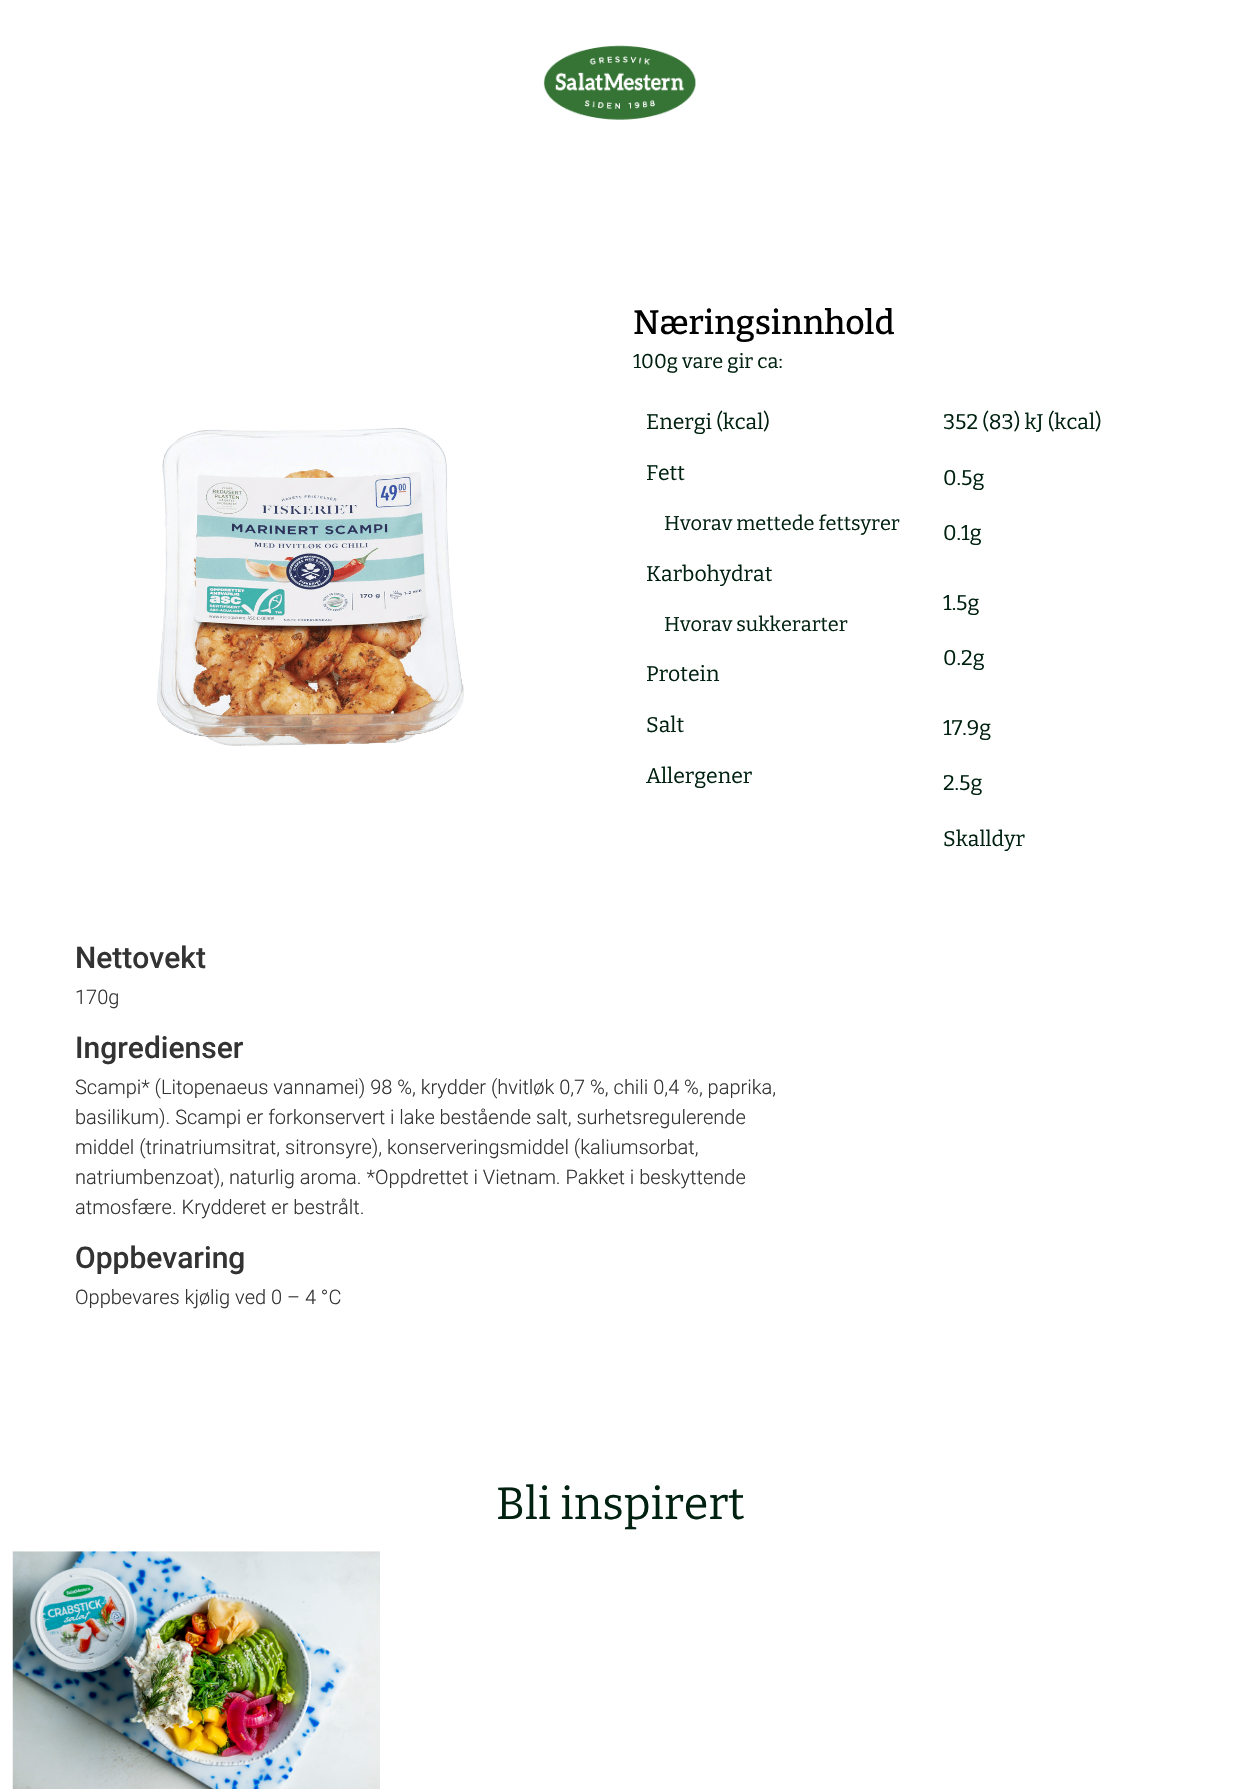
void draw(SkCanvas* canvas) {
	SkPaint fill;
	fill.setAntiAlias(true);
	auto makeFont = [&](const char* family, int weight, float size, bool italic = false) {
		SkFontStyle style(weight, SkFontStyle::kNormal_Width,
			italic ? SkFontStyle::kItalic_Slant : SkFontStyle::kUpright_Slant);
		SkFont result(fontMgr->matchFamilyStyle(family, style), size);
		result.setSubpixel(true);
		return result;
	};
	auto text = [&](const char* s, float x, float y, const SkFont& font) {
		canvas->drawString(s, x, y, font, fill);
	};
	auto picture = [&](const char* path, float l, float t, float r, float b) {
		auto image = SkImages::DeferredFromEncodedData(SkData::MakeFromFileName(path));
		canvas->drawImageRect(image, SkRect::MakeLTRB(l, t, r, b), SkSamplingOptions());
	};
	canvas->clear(0xFFFFFFFF);
	picture("image0.png", 543, 45, 696, 120);
	picture("image1.png", 157, 428, 464, 746);
	picture("image2.png", 12, 1551, 380, 1789);
	auto font1 = makeFont("Bitter", 500, 33.75f);
	fill.setColor(0xFF000000);
	text("Næringsinnhold", 633, 334, font1);
	auto font2 = makeFont("Bitter", 400, 20);
	fill.setColor(0xFF002110);
	text("100g vare gir ca:", 633, 368, font2);
	auto font3 = makeFont("Bitter", 400, 21.25f);
	text("Energi (kcal)", 646, 429, font3);
	text("Fett", 646, 480, font3);
	text("Hvorav mettede fettsyrer", 664, 530, font2);
	text("Karbohydrat", 646, 581, font3);
	text("Hvorav sukkerarter", 664, 631, font2);
	text("Protein", 646, 681, font3);
	text("Salt", 646, 732, font3);
	text("Allergener", 646, 783, font3);
	text("352 (83) kJ (kcal)", 943, 429, font3);
	text("0.5g", 943, 485, font3);
	text("0.1g", 943, 540, font3);
	text("1.5g", 943, 610, font3);
	text("0.2g", 943, 665, font3);
	text("17.9g", 943, 735, font3);
	text("2.5g", 943, 790, font3);
	text("Skalldyr", 943, 846, font3);
	auto font4 = makeFont("Roboto", 500, 30);
	fill.setColor(0xFF333333);
	text("Nettovekt", 75, 968, font4);
	auto font5 = makeFont("Roboto", 300, 20);
	text("170g", 75, 1004, font5);
	text("Ingredienser", 75, 1058, font4);
	text("Scampi* (Litopenaeus vannamei) 98 %, krydder (hvitløk 0,7 %, chili 0,4 %, paprika,", 75, 1094, font5);
	text("basilikum). Scampi er forkonservert i lake bestående salt, surhetsregulerende", 75, 1124, font5);
	text("middel (trinatriumsitrat, sitronsyre), konserveringsmiddel (kaliumsorbat,", 75, 1154, font5);
	text("natriumbenzoat), naturlig aroma. *Oppdrettet i Vietnam. Pakket i beskyttende", 75, 1184, font5);
	text("atmosfære. Krydderet er bestrålt.", 75, 1214, font5);
	text("Oppbevaring", 75, 1268, font4);
	text("Oppbevares kjølig ved 0 – 4 °C", 75, 1304, font5);
	auto font6 = makeFont("Bitter", 400, 45);
	fill.setColor(0xFF002110);
	text("Bli inspirert", 496, 1519, font6);
}
